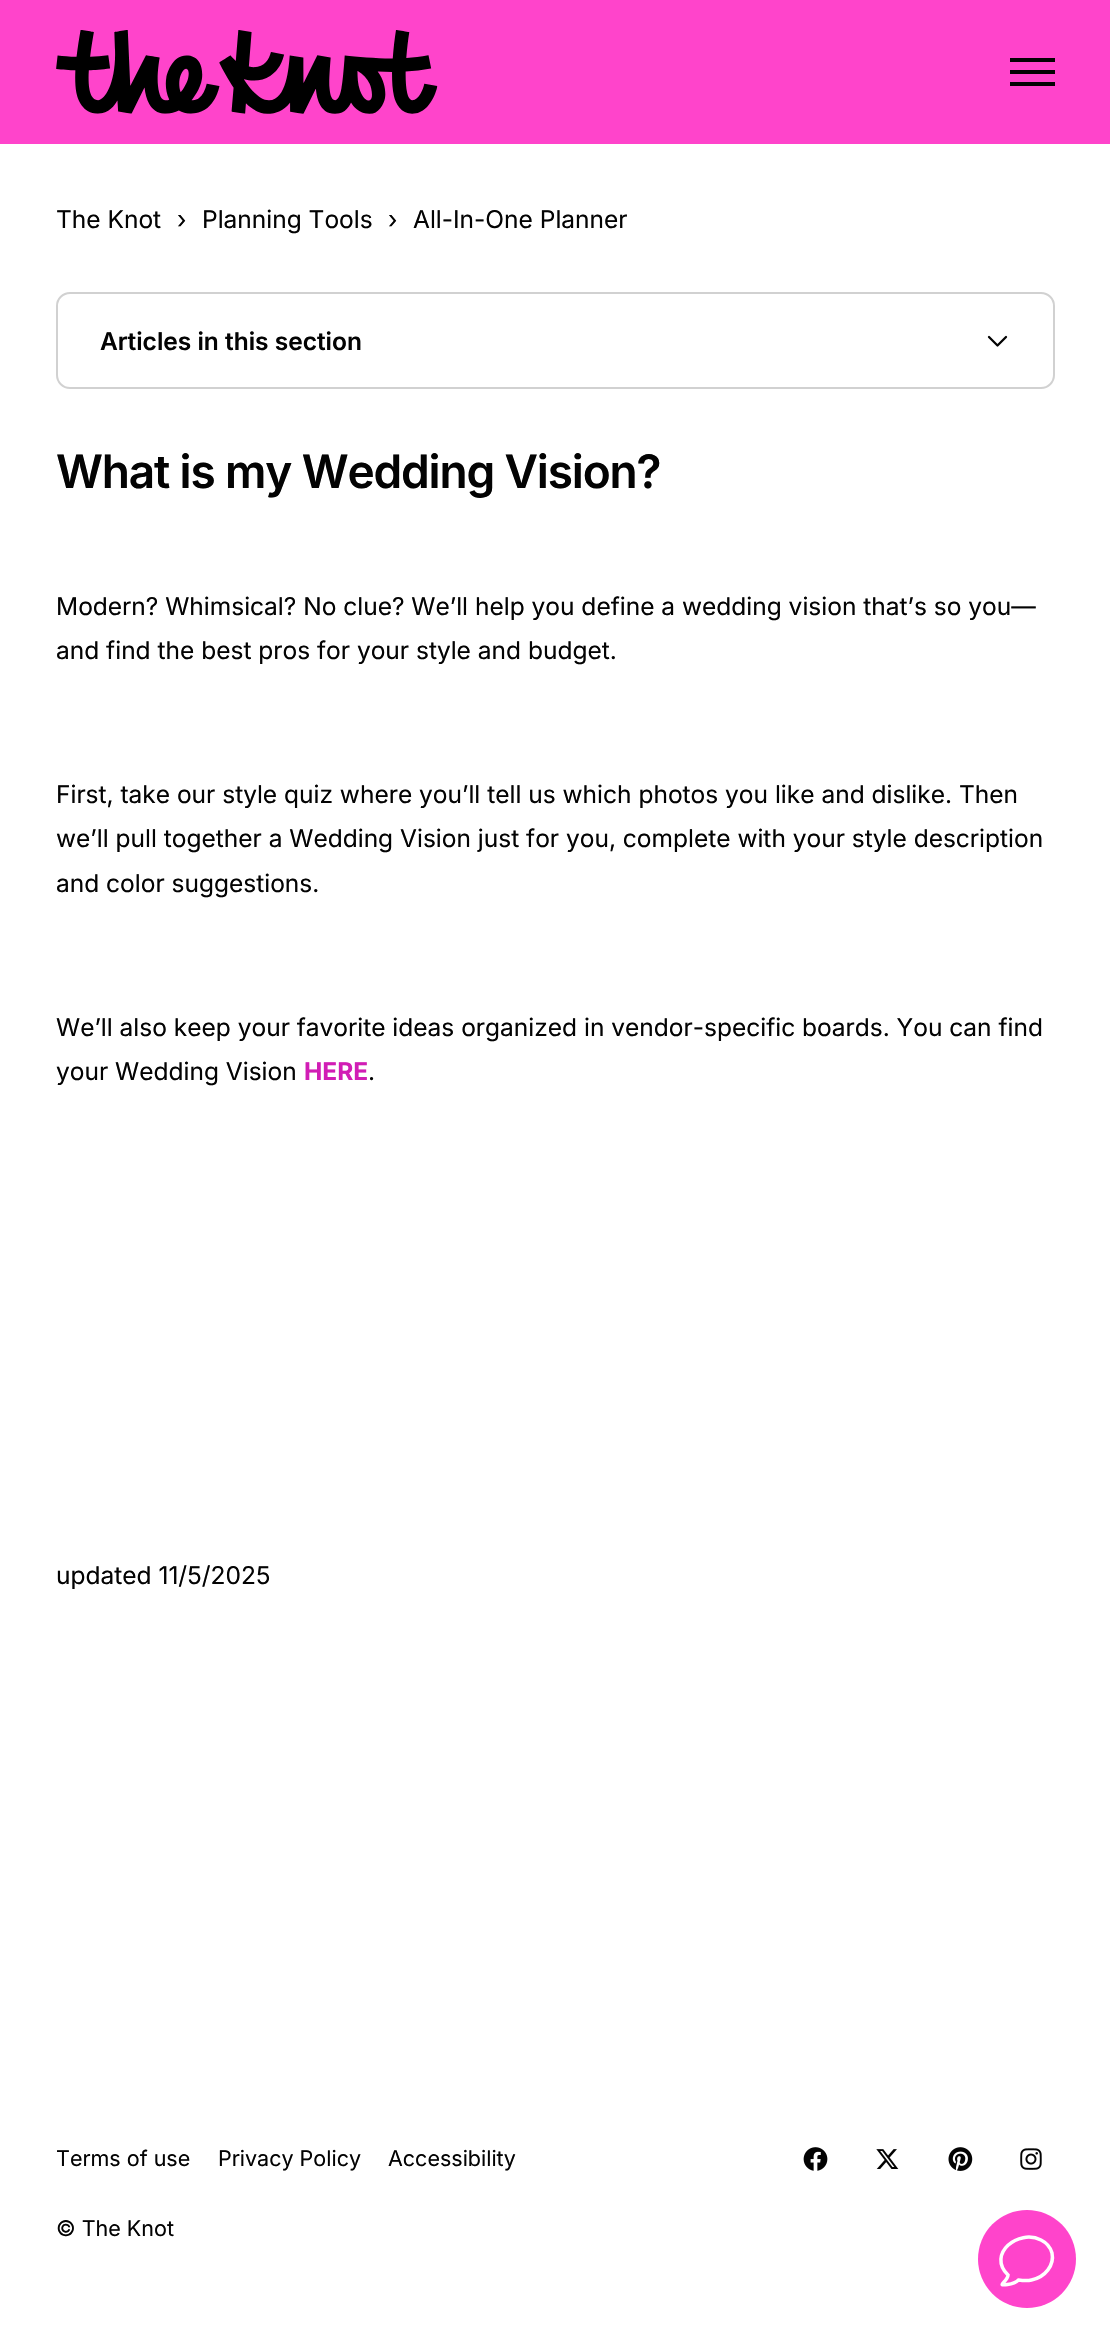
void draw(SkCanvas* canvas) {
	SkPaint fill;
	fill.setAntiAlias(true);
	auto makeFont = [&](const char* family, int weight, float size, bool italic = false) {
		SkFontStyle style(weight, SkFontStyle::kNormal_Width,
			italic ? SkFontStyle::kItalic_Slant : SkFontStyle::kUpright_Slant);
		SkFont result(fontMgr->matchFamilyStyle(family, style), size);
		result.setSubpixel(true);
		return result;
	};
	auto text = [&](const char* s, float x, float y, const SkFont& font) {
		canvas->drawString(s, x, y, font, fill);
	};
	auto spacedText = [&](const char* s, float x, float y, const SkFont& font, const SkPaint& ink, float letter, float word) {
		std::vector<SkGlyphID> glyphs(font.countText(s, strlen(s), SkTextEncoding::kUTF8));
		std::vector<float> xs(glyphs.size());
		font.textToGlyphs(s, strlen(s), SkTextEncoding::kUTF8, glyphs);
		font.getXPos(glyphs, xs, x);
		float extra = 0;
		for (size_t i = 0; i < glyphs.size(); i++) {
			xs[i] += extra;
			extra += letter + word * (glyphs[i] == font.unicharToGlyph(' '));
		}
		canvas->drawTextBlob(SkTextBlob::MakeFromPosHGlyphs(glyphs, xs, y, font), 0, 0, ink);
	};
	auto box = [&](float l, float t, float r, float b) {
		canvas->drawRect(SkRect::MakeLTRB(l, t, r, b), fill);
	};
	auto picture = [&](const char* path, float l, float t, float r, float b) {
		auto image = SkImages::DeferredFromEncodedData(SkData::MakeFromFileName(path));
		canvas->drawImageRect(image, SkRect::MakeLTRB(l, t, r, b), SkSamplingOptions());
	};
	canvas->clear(0xFFFFFFFF);
	fill.setColor(0xFFFF44CB);
	box(0, 0, 1110, 144);
	picture("image0.png", 56, 30, 438, 114);
	fill.setColor(0xFF030303);
	box(1010, 70, 1055, 74);
	box(1010, 58, 1055, 62);
	box(1010, 82, 1055, 86);
	fill.setStyle(SkPaint::kStroke_Style);
	fill.setStrokeWidth(2);
	fill.setColor(0xFFD1D1D1);
	canvas->drawRoundRect(SkRect::MakeLTRB(57, 293, 1054, 388), 13, 13, fill);
	fill.setStrokeWidth(2.3f);
	fill.setStrokeCap(SkPaint::kRound_Cap);
	fill.setStrokeJoin(SkPaint::kRound_Join);
	fill.setColor(0xFF030303);
	canvas->drawPath(SkPathBuilder().moveTo(1006, 337).lineTo(997.5f, 345.5f).lineTo(989, 337).detach(), fill);
	picture("image1.png", 803, 2147, 828, 2171);
	picture("image2.png", 876, 2149, 899, 2169);
	picture("image3.png", 948, 2147, 973, 2171);
	picture("image4.png", 1020, 2148, 1042, 2170);
	fill.setStyle(SkPaint::kFill_Style);
	fill.setColor(0xFFFF44CB);
	canvas->drawCircle(1027, 2259, 49, fill);
	fill.setStyle(SkPaint::kStroke_Style);
	fill.setStrokeWidth(3.5f);
	fill.setStrokeCap(SkPaint::kButt_Cap);
	fill.setStrokeJoin(SkPaint::kMiter_Join);
	fill.setColor(0xFFFFFFFF);
	canvas->drawPath(SkPathBuilder().moveTo(1052, 2253).cubicTo(1050.5f, 2247.5f, 1046, 2242.5f, 1041, 2240).cubicTo(1018.5f, 2228.5f, 986.5f, 2254, 1008, 2275).cubicTo(1008, 2281.5f, 995, 2286.5f, 1007.5f, 2284.5f).cubicTo(1011.5f, 2284, 1015.5f, 2283, 1018.5f, 2280).cubicTo(1022, 2280.5f, 1027.5f, 2281, 1031.5f, 2280).cubicTo(1045.5f, 2277, 1054.5f, 2265, 1052, 2253).close().detach(), fill);
	auto font1 = makeFont("Inter", 400, 24.5f);
	fill.setStyle(SkPaint::kFill_Style);
	fill.setColor(0xFF030303);
	text("The Knot", 56, 228, font1);
	text("›", 177, 228, font1);
	text("Planning Tools", 202, 228, font1);
	text("›", 388, 228, font1);
	text("All-In-One Planner", 413, 228, font1);
	auto font2 = makeFont("Inter", 600, 24.5f);
	text("Articles in this section", 100, 350, font2);
	auto font3 = makeFont("Inter", 600, 46);
	spacedText("What is my Wedding Vision?", 56, 488, font3, fill, -1.15f, 0);
	text("Modern? Whimsical? No clue? We’ll help you define a wedding vision that’s so you—", 56, 615, font1);
	text("and find the best pros for your style and budget.", 56, 659, font1);
	text("First, take our style quiz where you’ll tell us which photos you like and dislike. Then", 56, 803, font1);
	text("we’ll pull together a Wedding Vision just for you, complete with your style description", 56, 847, font1);
	text("and color suggestions.", 56, 892, font1);
	text("We’ll also keep your favorite ideas organized in vendor-specific boards. You can find", 56, 1036, font1);
	text("your Wedding Vision", 56, 1080, font1);
	auto font4 = makeFont("Inter", 700, 24.5f);
	fill.setColor(0xFFD11DB5);
	text("HERE", 304, 1080, font4);
	fill.setColor(0xFF030303);
	text(".", 368, 1080, font1);
	text("updated 11/5/2025", 56, 1584, font1);
	auto font5 = makeFont("Inter", 400, 21.5f);
	text("Terms of use", 56, 2166, font5);
	text("Privacy Policy", 218, 2166, font5);
	text("Accessibility", 388, 2166, font5);
	text("© The Knot", 56, 2236, font5);
}
